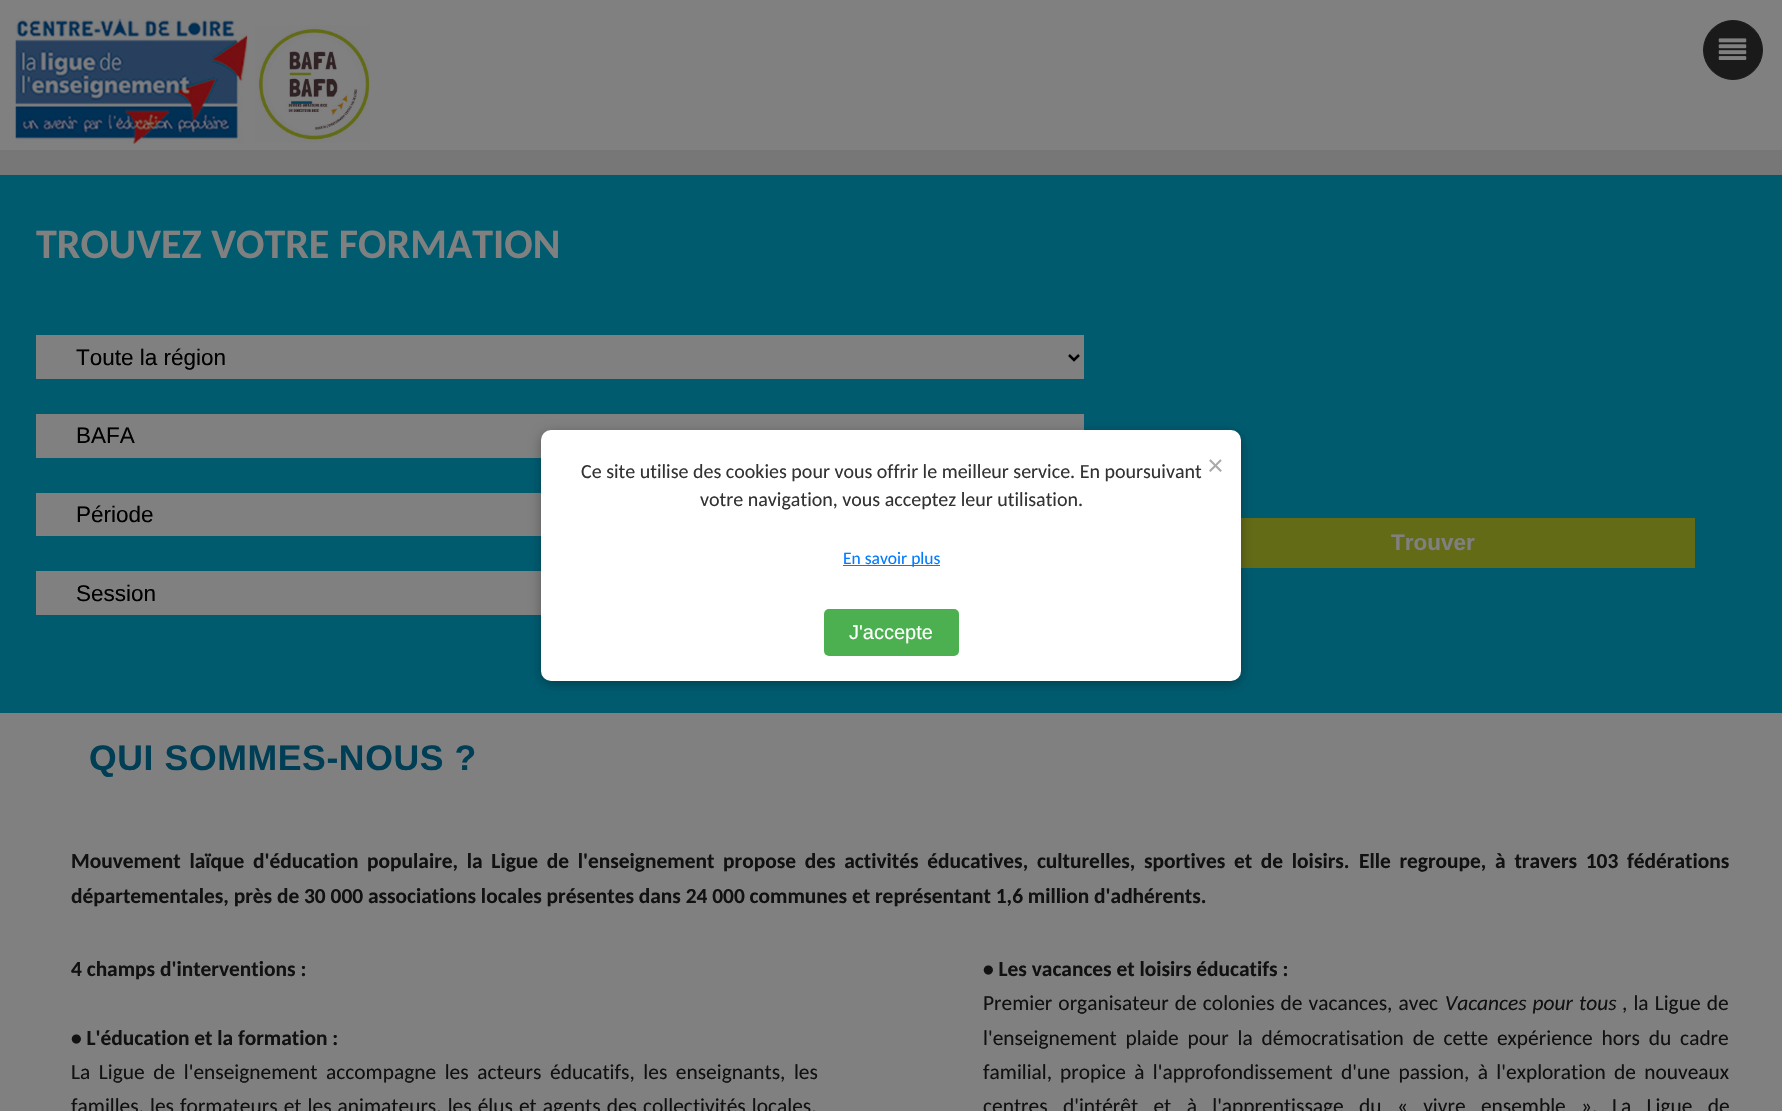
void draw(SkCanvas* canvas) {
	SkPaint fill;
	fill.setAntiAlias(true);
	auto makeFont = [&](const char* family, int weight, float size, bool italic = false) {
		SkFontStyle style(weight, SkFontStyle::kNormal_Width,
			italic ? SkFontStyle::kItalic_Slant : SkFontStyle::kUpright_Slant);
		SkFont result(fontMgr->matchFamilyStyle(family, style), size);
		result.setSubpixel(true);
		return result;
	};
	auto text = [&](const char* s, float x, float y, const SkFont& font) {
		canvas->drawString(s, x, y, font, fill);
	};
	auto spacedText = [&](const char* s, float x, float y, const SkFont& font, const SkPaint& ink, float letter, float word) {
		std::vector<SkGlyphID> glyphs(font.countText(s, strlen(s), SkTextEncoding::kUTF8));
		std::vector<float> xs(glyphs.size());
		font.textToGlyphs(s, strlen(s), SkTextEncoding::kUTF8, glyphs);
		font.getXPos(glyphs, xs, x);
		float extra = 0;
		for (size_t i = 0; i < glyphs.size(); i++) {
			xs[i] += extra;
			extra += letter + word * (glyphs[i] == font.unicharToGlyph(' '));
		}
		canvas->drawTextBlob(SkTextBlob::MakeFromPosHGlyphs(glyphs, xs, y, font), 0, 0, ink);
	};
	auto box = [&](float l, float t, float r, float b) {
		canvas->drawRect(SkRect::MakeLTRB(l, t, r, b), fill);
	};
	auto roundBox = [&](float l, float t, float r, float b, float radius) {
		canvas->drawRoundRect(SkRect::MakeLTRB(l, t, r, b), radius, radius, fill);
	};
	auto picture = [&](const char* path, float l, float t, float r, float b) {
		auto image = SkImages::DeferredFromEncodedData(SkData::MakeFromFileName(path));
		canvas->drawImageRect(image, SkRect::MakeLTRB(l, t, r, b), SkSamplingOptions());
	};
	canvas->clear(0xFF808080);
	picture("image0.png", 15, 18, 370, 144);
	fill.setColor(0xFF1A1A1A);
	canvas->drawCircle(1733, 50, 29.5f, fill);
	fill.setStyle(SkPaint::kStroke_Style);
	fill.setStrokeWidth(1);
	canvas->drawCircle(1733, 50, 29.5f, fill);
	picture("image1.png", 1718, 38, 1747, 60);
	fill.setStyle(SkPaint::kFill_Style);
	fill.setColor(0xFF777777);
	box(0, 150, 1782, 175);
	fill.setColor(0xFF005B6F);
	box(0, 175, 1782, 713);
	fill.setColor(0xFF808080);
	box(36, 335, 1084, 379);
	fill.setStyle(SkPaint::kStroke_Style);
	fill.setStrokeWidth(2.5f);
	fill.setColor(0xFF000000);
	canvas->drawPath(SkPathBuilder().moveTo(1069, 355).lineTo(1074, 360).lineTo(1079, 355).detach(), fill);
	fill.setStyle(SkPaint::kFill_Style);
	fill.setColor(0xFF808080);
	box(36, 414, 1084, 458);
	box(36, 493, 541, 536);
	box(36, 571, 541, 615);
	fill.setColor(0xFF636B17);
	box(1241, 518, 1695, 568);
	fill.setColor(0x4D000000);
	fill.setMaskFilter(SkMaskFilter::MakeBlur(kNormal_SkBlurStyle, 6));
	canvas->drawRoundRect(SkRect::MakeLTRB(541, 433, 1241, 684), 10, 10, fill);
	fill.setMaskFilter(nullptr);
	fill.setColor(0xFFFFFFFF);
	roundBox(541, 430, 1241, 681, 10);
	fill.setColor(0xFF007BFF);
	box(843, 565, 940, 566);
	fill.setColor(0xFF4CAF50);
	roundBox(824, 609, 959, 656, 5);
	auto font1 = makeFont("Carlito", 700, 42);
	fill.setColor(0xFF808080);
	text("TROUVEZ VOTRE FORMATION", 36, 258, font1);
	auto font2 = makeFont("Liberation Sans", 400, 22.5f);
	fill.setColor(0xFF000000);
	text("Toute la région", 76, 365, font2);
	text("BAFA", 76, 443, font2);
	text("Période", 76, 522, font2);
	text("Session", 76, 601, font2);
	auto font3 = makeFont("Liberation Sans", 700, 22.5f);
	fill.setColor(0xFF808080);
	text("Trouver", 1391, 550, font3);
	auto font4 = makeFont("Liberation Sans", 700, 35.6f);
	fill.setColor(0xFF003E55);
	spacedText("QUI SOMMES-NOUS ?", 89, 770, font4, fill, 0.6f, 0);
	auto font5 = makeFont("Carlito", 700, 21.4f);
	fill.setColor(0xFF111111);
	spacedText("Mouvement laïque d'éducation populaire, la Ligue de l'enseignement propose des activités éducatives, culturelles, sportives et de loisirs.", 71, 868, font5, fill, 0, 3.9f);
	spacedText("Elle regroupe, à travers 103 fédérations", 1359, 868, font5, fill, 0, 3.9f);
	text("départementales, près de 30 000 associations locales présentes dans 24 000 communes et représentant 1,6 million d'adhérents.", 71, 903, font5);
	text("4 champs d'interventions :", 71, 976, font5);
	text("• L'éducation et la formation :", 71, 1045, font5);
	auto font6 = makeFont("Carlito", 400, 21.4f);
	spacedText("La Ligue de l'enseignement accompagne les acteurs éducatifs, les enseignants, les", 71, 1079, font6, fill, 0, 3.75f);
	spacedText("familles, les formateurs et les animateurs, les élus et agents des collectivités locales,", 71, 1113, font6, fill, 0, 1.25f);
	text("• Les vacances et loisirs éducatifs :", 983, 976, font5);
	spacedText("Premier organisateur de colonies de vacances, avec", 983, 1010, font6, fill, 0, 1.25f);
	auto font7 = makeFont("Carlito", 400, 21.4f, true);
	spacedText("Vacances pour tous", 1445, 1010, font7, fill, 0, 1.25f);
	spacedText(", la Ligue de", 1622, 1010, font6, fill, 0, 1.25f);
	spacedText("l'enseignement plaide pour la démocratisation de cette expérience hors du cadre", 983, 1045, font6, fill, 0, 4);
	text("familial,", 983, 1079, font6);
	spacedText("propice à l'approfondissement d'une passion, à l'exploration de nouveaux", 1060, 1079, font6, fill, 0, 3.5f);
	spacedText("centres d'intérêt et à l'apprentissage du « vivre ensemble ».", 983, 1113, font6, fill, 0, 10.5f);
	spacedText("La Ligue de", 1612, 1113, font6, fill, 0, 10.5f);
	auto font8 = makeFont("Carlito", 400, 20);
	fill.setColor(0xFF333333);
	text("Ce site utilise des cookies pour vous offrir le meilleur service. En poursuivant", 581, 478, font8);
	text("votre navigation, vous acceptez leur utilisation.", 700, 506, font8);
	auto font9 = makeFont("Carlito", 400, 30);
	fill.setColor(0xFFAAAAAA);
	text("×", 1208, 475, font9);
	auto font10 = makeFont("Carlito", 400, 17.5f);
	fill.setColor(0xFF007BFF);
	text("En savoir plus", 843, 564, font10);
	auto font11 = makeFont("Liberation Sans", 400, 20);
	fill.setColor(0xFFFFFFFF);
	text("J'accepte", 849, 639, font11);
}
